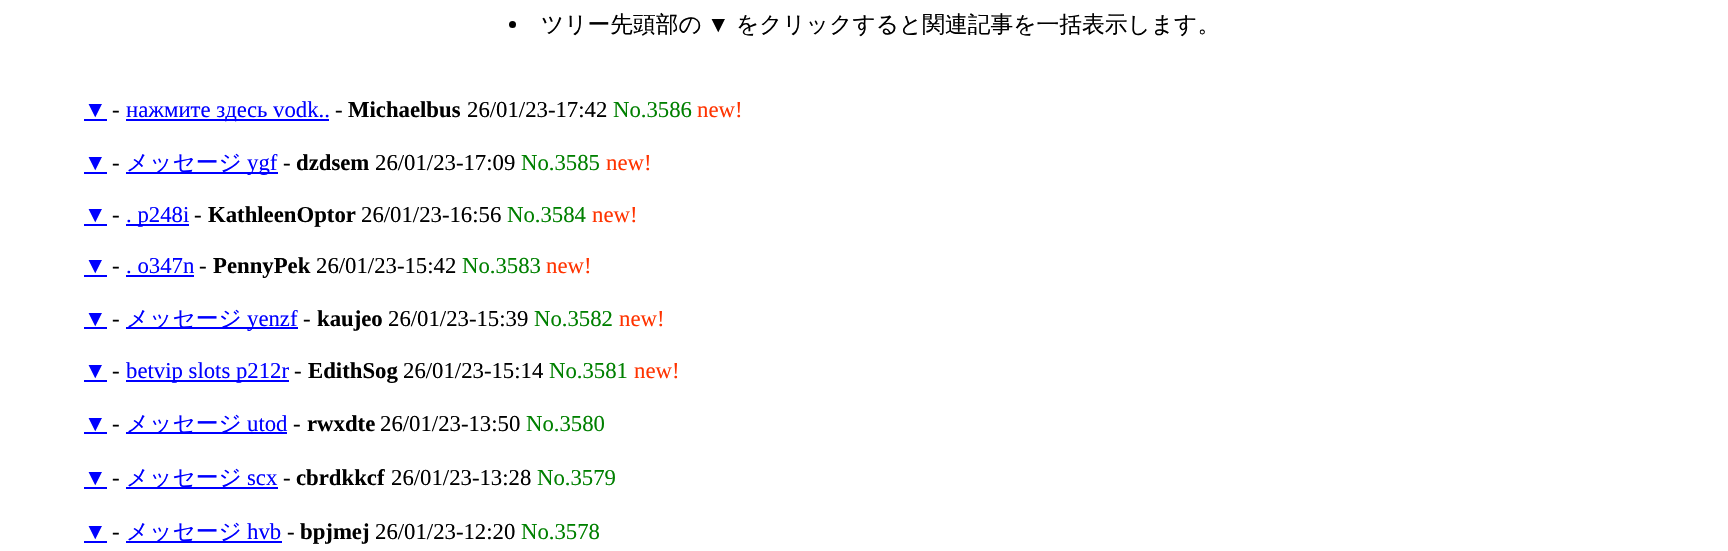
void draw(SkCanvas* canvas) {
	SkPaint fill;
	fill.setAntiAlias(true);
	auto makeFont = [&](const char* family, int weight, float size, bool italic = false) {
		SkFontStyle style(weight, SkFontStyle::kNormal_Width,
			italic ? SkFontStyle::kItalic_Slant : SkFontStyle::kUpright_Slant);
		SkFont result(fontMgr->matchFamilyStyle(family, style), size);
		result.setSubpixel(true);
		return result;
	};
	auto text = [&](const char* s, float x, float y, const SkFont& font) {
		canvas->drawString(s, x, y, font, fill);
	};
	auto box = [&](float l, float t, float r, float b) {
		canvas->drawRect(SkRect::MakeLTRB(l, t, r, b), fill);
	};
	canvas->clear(0xFFFFFFFF);
	fill.setColor(0xFF000000);
	canvas->drawCircle(512.5f, 24.5f, 3.5f, fill);
	fill.setColor(0xFF0000FF);
	box(84, 119, 107, 121);
	box(126, 119, 329, 121);
	box(84, 172, 107, 174);
	box(126, 172, 278, 174);
	box(84, 224, 107, 226);
	box(126, 224, 189, 226);
	box(84, 275, 107, 277);
	box(126, 275, 194, 277);
	box(84, 327, 107, 329);
	box(126, 327, 298, 329);
	box(84, 380, 107, 382);
	box(126, 380, 289, 382);
	box(84, 432, 107, 434);
	box(126, 432, 287, 434);
	box(84, 487, 107, 489);
	box(126, 487, 278, 489);
	box(84, 541, 107, 543);
	box(126, 541, 282, 543);
	auto font1 = makeFont("WenQuanYi Zen Hei", 500, 22.75f);
	fill.setColor(0xFF000000);
	text("ツリー先頭部の", 541, 32, font1);
	auto font2 = makeFont("Liberation Serif", 400, 22.75f);
	text("▼", 707, 32, font2);
	text("をクリックすると関連記事を一括表示します。", 736, 32, font1);
	fill.setColor(0xFF0000FF);
	text("▼", 84, 117, font2);
	fill.setColor(0xFF000000);
	text("-", 112, 117, font2);
	fill.setColor(0xFF0000FF);
	text("нажмите здесь vodk..", 126, 117, font2);
	fill.setColor(0xFF000000);
	text("-", 335, 117, font2);
	auto font3 = makeFont("Liberation Serif", 700, 22.75f);
	text("Michaelbus", 348, 117, font3);
	text("26/01/23-17:42", 467, 117, font2);
	fill.setColor(0xFF008000);
	text("No.3586", 613, 117, font2);
	fill.setColor(0xFFFF3300);
	text("new!", 697, 117, font2);
	fill.setColor(0xFF0000FF);
	text("▼", 84, 170, font2);
	fill.setColor(0xFF000000);
	text("-", 112, 170, font2);
	fill.setColor(0xFF0000FF);
	text("メッセージ", 126, 170, font1);
	text("ygf", 247, 170, font2);
	fill.setColor(0xFF000000);
	text("-", 283, 170, font2);
	text("dzdsem", 296, 170, font3);
	text("26/01/23-17:09", 375, 170, font2);
	fill.setColor(0xFF008000);
	text("No.3585", 521, 170, font2);
	fill.setColor(0xFFFF3300);
	text("new!", 606, 170, font2);
	fill.setColor(0xFF0000FF);
	text("▼", 84, 222, font2);
	fill.setColor(0xFF000000);
	text("-", 112, 222, font2);
	fill.setColor(0xFF0000FF);
	text(". p248i", 126, 222, font2);
	fill.setColor(0xFF000000);
	text("-", 194, 222, font2);
	text("KathleenOptor", 208, 222, font3);
	text("26/01/23-16:56", 361, 222, font2);
	fill.setColor(0xFF008000);
	text("No.3584", 507, 222, font2);
	fill.setColor(0xFFFF3300);
	text("new!", 592, 222, font2);
	fill.setColor(0xFF0000FF);
	text("▼", 84, 273, font2);
	fill.setColor(0xFF000000);
	text("-", 112, 273, font2);
	fill.setColor(0xFF0000FF);
	text(". o347n", 126, 273, font2);
	fill.setColor(0xFF000000);
	text("-", 199, 273, font2);
	text("PennyPek", 213, 273, font3);
	text("26/01/23-15:42", 316, 273, font2);
	fill.setColor(0xFF008000);
	text("No.3583", 462, 273, font2);
	fill.setColor(0xFFFF3300);
	text("new!", 546, 273, font2);
	fill.setColor(0xFF0000FF);
	text("▼", 84, 326, font2);
	fill.setColor(0xFF000000);
	text("-", 112, 326, font2);
	fill.setColor(0xFF0000FF);
	text("メッセージ", 126, 326, font1);
	text("yenzf", 247, 326, font2);
	fill.setColor(0xFF000000);
	text("-", 303, 326, font2);
	text("kaujeo", 317, 326, font3);
	text("26/01/23-15:39", 388, 326, font2);
	fill.setColor(0xFF008000);
	text("No.3582", 534, 326, font2);
	fill.setColor(0xFFFF3300);
	text("new!", 619, 326, font2);
	fill.setColor(0xFF0000FF);
	text("▼", 84, 378, font2);
	fill.setColor(0xFF000000);
	text("-", 112, 378, font2);
	fill.setColor(0xFF0000FF);
	text("betvip slots p212r", 126, 378, font2);
	fill.setColor(0xFF000000);
	text("-", 294, 378, font2);
	text("EdithSog", 308, 378, font3);
	text("26/01/23-15:14", 403, 378, font2);
	fill.setColor(0xFF008000);
	text("No.3581", 549, 378, font2);
	fill.setColor(0xFFFF3300);
	text("new!", 634, 378, font2);
	fill.setColor(0xFF0000FF);
	text("▼", 84, 431, font2);
	fill.setColor(0xFF000000);
	text("-", 112, 431, font2);
	fill.setColor(0xFF0000FF);
	text("メッセージ", 126, 431, font1);
	text("utod", 247, 431, font2);
	fill.setColor(0xFF000000);
	text("-", 293, 431, font2);
	text("rwxdte", 307, 431, font3);
	text("26/01/23-13:50", 380, 431, font2);
	fill.setColor(0xFF008000);
	text("No.3580", 526, 431, font2);
	fill.setColor(0xFF0000FF);
	text("▼", 84, 485, font2);
	fill.setColor(0xFF000000);
	text("-", 112, 485, font2);
	fill.setColor(0xFF0000FF);
	text("メッセージ", 126, 485, font1);
	text("scx", 247, 485, font2);
	fill.setColor(0xFF000000);
	text("-", 283, 485, font2);
	text("cbrdkkcf", 296, 485, font3);
	text("26/01/23-13:28", 391, 485, font2);
	fill.setColor(0xFF008000);
	text("No.3579", 537, 485, font2);
	fill.setColor(0xFF0000FF);
	text("▼", 84, 539, font2);
	fill.setColor(0xFF000000);
	text("-", 112, 539, font2);
	fill.setColor(0xFF0000FF);
	text("メッセージ", 126, 539, font1);
	text("hvb", 247, 539, font2);
	fill.setColor(0xFF000000);
	text("-", 287, 539, font2);
	text("bpjmej", 300, 539, font3);
	text("26/01/23-12:20", 375, 539, font2);
	fill.setColor(0xFF008000);
	text("No.3578", 521, 539, font2);
}
